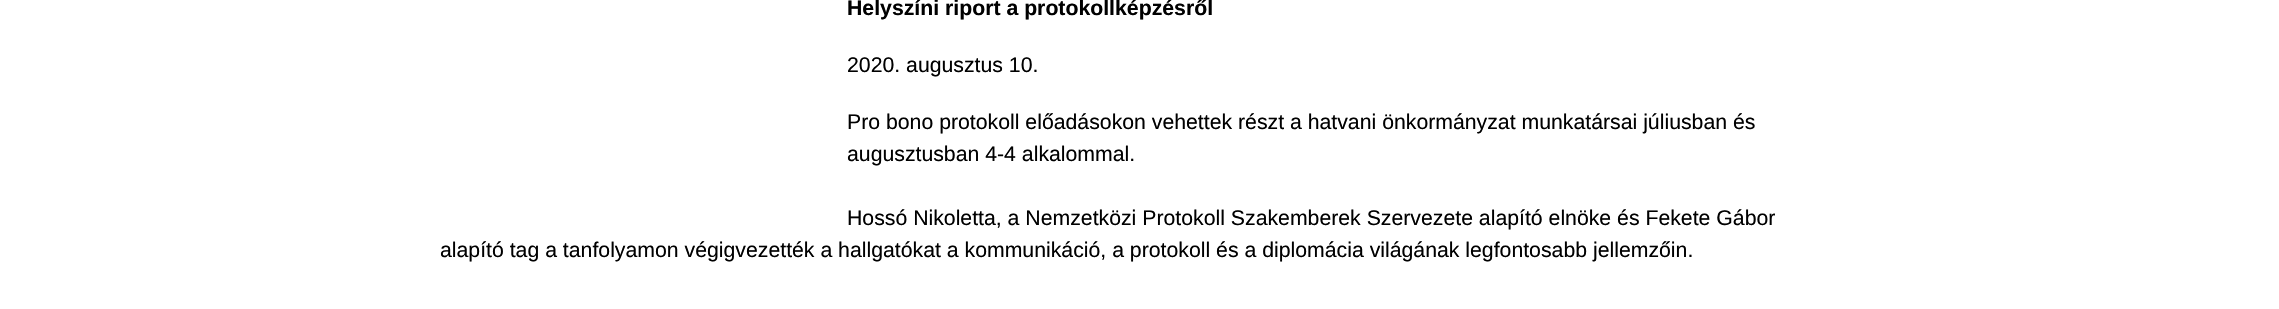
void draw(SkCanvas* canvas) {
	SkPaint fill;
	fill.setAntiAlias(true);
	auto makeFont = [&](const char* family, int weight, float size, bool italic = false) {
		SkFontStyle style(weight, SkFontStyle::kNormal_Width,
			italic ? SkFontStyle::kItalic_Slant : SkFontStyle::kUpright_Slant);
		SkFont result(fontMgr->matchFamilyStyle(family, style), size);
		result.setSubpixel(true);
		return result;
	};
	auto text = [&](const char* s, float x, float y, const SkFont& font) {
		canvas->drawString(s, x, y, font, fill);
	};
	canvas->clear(0xFFFFFFFF);
	auto font1 = makeFont("Liberation Sans", 700, 21.25f);
	fill.setColor(0xFF000000);
	text("Helyszíni riport a protokollképzésről", 847, 15, font1);
	auto font2 = makeFont("Liberation Sans", 400, 21.25f);
	text("2020. augusztus 10.", 847, 72, font2);
	text("Pro bono protokoll előadásokon vehettek részt a hatvani önkormányzat munkatársai júliusban és", 847, 129, font2);
	text("augusztusban 4-4 alkalommal.", 847, 161, font2);
	text("Hossó Nikoletta, a Nemzetközi Protokoll Szakemberek Szervezete alapító elnöke és Fekete Gábor", 847, 225, font2);
	text("alapító tag a tanfolyamon végigvezették a hallgatókat a kommunikáció, a protokoll és a diplomácia világának legfontosabb jellemzőin.", 440, 257, font2);
}
